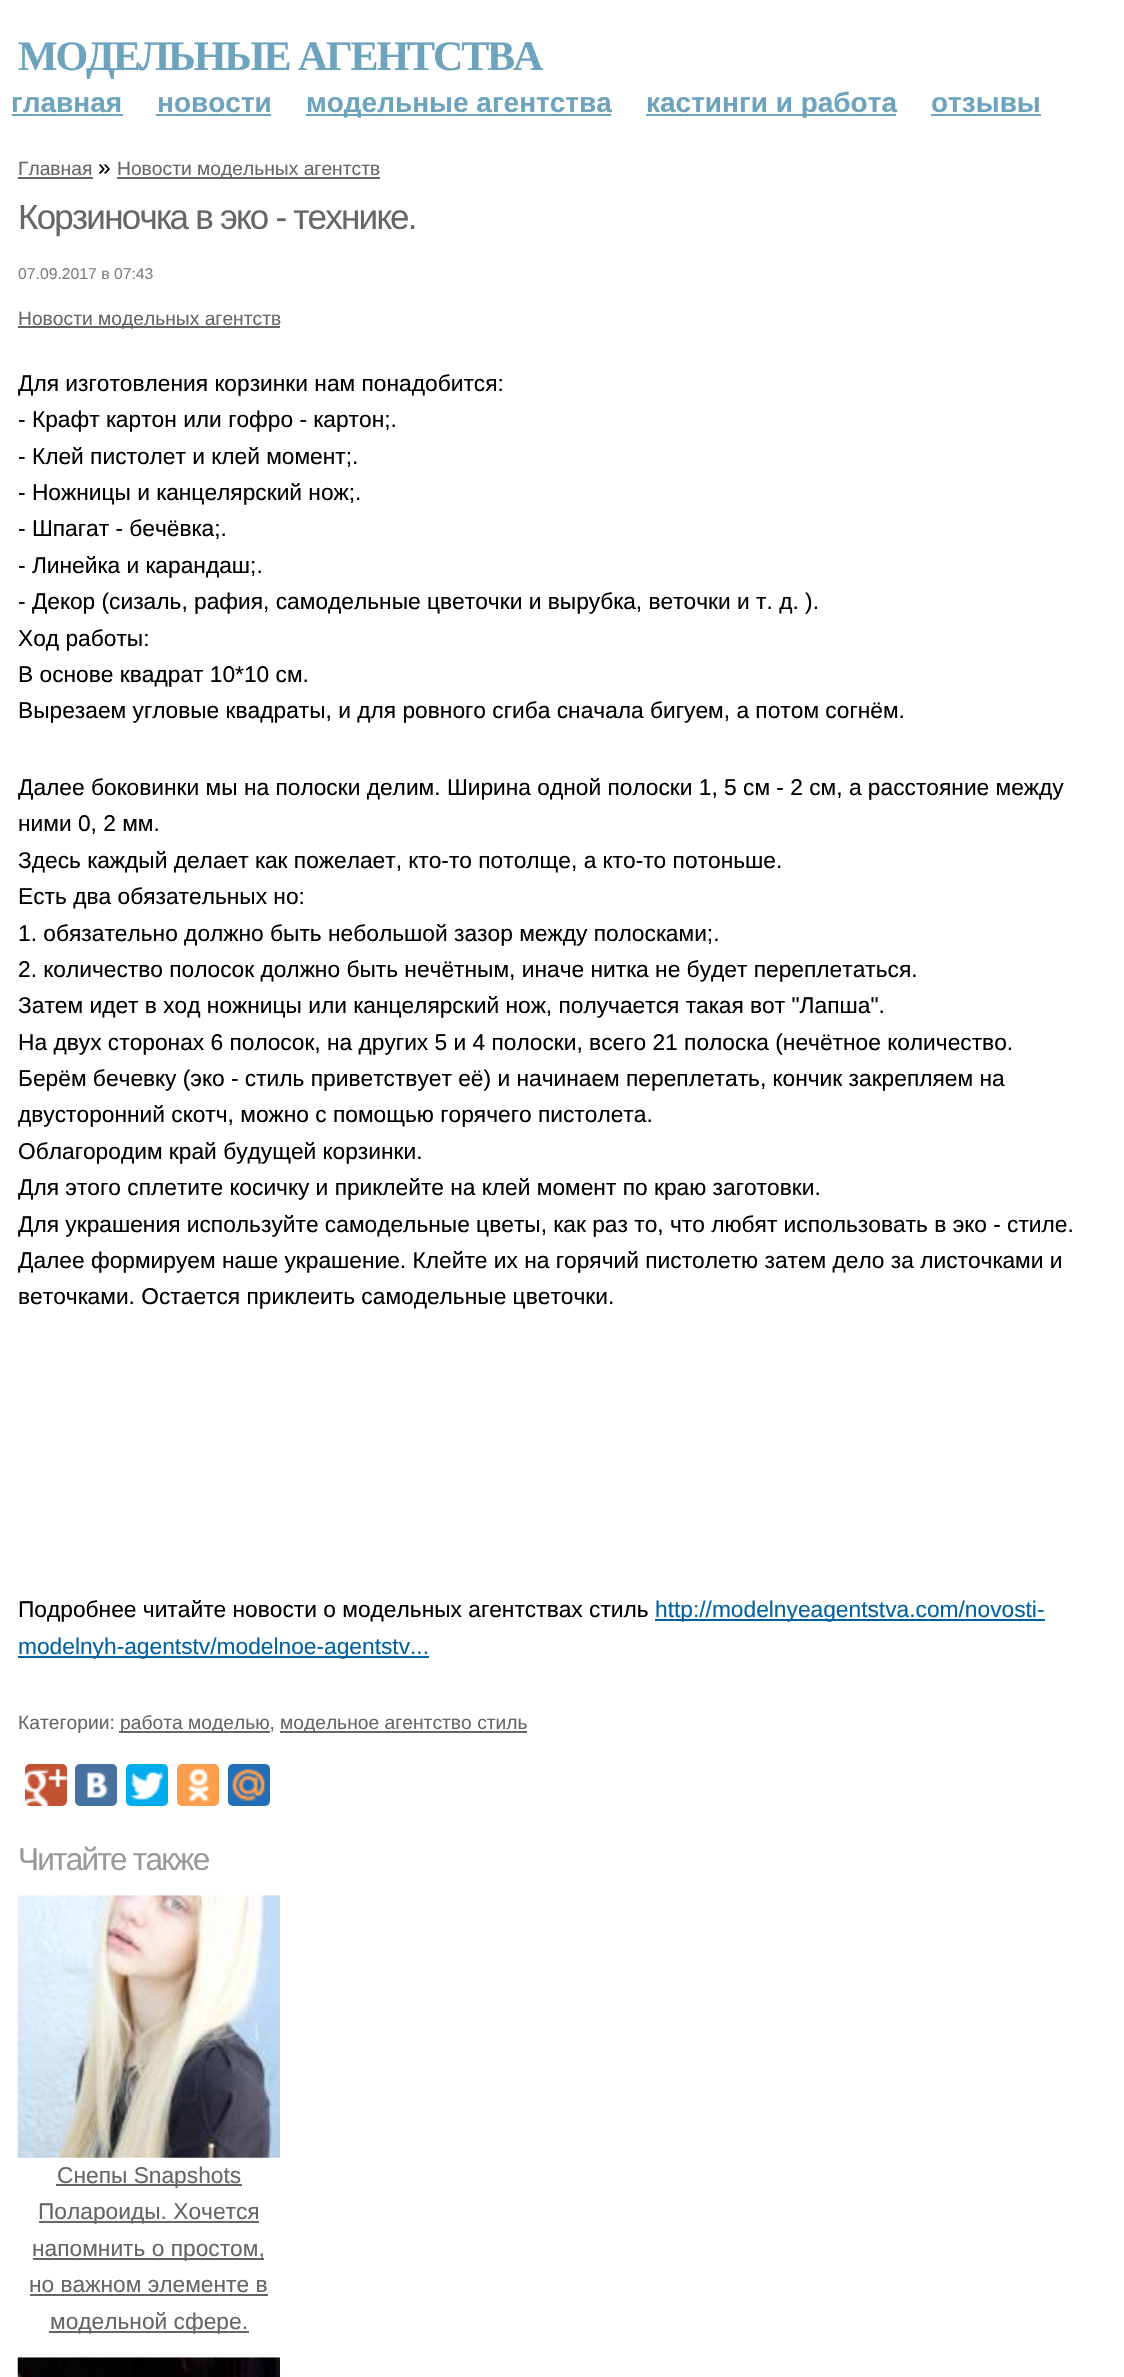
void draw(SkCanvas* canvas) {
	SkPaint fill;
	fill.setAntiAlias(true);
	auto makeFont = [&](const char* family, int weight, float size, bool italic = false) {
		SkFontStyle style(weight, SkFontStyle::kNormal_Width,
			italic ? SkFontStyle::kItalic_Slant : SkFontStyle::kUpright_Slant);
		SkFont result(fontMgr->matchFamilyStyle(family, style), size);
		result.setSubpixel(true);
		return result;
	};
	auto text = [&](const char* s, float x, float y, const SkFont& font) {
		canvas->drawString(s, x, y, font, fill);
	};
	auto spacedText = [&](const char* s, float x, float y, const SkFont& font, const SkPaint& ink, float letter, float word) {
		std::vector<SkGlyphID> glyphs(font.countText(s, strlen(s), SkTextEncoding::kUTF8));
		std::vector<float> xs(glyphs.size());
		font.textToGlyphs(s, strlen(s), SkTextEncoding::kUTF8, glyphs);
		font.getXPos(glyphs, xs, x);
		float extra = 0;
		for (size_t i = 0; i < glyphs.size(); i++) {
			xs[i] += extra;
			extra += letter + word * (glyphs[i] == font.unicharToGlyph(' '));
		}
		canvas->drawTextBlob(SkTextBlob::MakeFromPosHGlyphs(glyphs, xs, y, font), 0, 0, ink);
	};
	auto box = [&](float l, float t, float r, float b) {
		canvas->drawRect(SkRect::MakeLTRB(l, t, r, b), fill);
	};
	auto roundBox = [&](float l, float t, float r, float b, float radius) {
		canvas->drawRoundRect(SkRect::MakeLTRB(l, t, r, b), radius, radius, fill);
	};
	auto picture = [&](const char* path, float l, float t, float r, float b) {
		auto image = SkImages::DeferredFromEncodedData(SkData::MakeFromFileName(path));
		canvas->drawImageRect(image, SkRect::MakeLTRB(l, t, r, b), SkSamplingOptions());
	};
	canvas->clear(0xFFFFFFFF);
	fill.setColor(0xFF6DA3BD);
	box(12, 114, 123, 116);
	box(156, 114, 271, 116);
	box(306, 114, 611, 116);
	box(646, 114, 896, 116);
	box(931, 114, 1041, 116);
	fill.setColor(0xFF666666);
	box(18, 177, 93, 179);
	box(117, 177, 380, 179);
	box(18, 326, 280, 328);
	fill.setColor(0xFF0062A0);
	box(655, 1619, 1045, 1621);
	box(18, 1656, 429, 1658);
	fill.setColor(0xFF666666);
	box(119, 1731, 270, 1733);
	box(280, 1731, 527, 1733);
	fill.setColor(0xFFC25234);
	roundBox(25, 1764, 67, 1806, 5);
	picture("image0.png", 25, 1768, 67, 1806);
	fill.setColor(0xFF48729E);
	roundBox(75, 1764, 117, 1806, 5);
	picture("image1.png", 87, 1772, 108, 1798);
	fill.setColor(0xFF00ACED);
	roundBox(126, 1764, 168, 1806, 5);
	picture("image2.png", 130, 1772, 164, 1800);
	fill.setColor(0xFFFF9F4D);
	roundBox(177, 1764, 219, 1806, 5);
	picture("image3.png", 188, 1768, 209, 1802);
	fill.setColor(0xFF226EB7);
	roundBox(228, 1764, 270, 1806, 5);
	picture("image4.png", 232, 1768, 265, 1802);
	picture("image5.png", 17, 1895, 280, 2158);
	fill.setColor(0xFF666666);
	box(56, 2184, 242, 2186);
	box(39, 2221, 259, 2223);
	box(33, 2258, 264, 2260);
	box(30, 2294, 268, 2296);
	box(49, 2331, 249, 2333);
	picture("image6.png", 17, 2357, 280, 2377);
	auto font1 = makeFont("Liberation Serif", 700, 42);
	fill.setColor(0xFF6DA3BD);
	spacedText("МОДЕЛЬНЫЕ АГЕНТСТВА", 18, 70, font1, fill, -2.1f, 0);
	auto font2 = makeFont("Liberation Sans", 700, 28);
	text("главная", 11, 112, font2);
	text("новости", 157, 112, font2);
	text("модельные агентства", 306, 112, font2);
	text("кастинги и работа", 646, 112, font2);
	text("отзывы", 931, 112, font2);
	auto font3 = makeFont("Liberation Sans", 400, 19.25f);
	fill.setColor(0xFF666666);
	text("Главная", 18, 175, font3);
	auto font4 = makeFont("Liberation Sans", 400, 22.75f);
	fill.setColor(0xFF000000);
	text("»", 98, 175, font4);
	fill.setColor(0xFF666666);
	text("Новости модельных агентств", 117, 175, font3);
	auto font5 = makeFont("Liberation Sans", 400, 35);
	spacedText("Корзиночка в эко - технике.", 18, 229, font5, fill, -1.75f, 0);
	auto font6 = makeFont("Liberation Sans", 400, 15.75f);
	fill.setColor(0xFF7E7E7E);
	text("07.09.2017 в 07:43", 18, 279, font6);
	fill.setColor(0xFF666666);
	text("Новости модельных агентств", 18, 325, font3);
	fill.setColor(0xFF000000);
	text("Для изготовления корзинки нам понадобится:", 18, 391, font4);
	text("- Крафт картон или гофро - картон;.", 18, 427, font4);
	text("- Клей пистолет и клей момент;.", 18, 464, font4);
	text("- Ножницы и канцелярский нож;.", 18, 500, font4);
	text("- Шпагат - бечёвка;.", 18, 536, font4);
	text("- Линейка и карандаш;.", 18, 573, font4);
	text("- Декор (сизаль, рафия, самодельные цветочки и вырубка, веточки и т. д. ).", 18, 609, font4);
	text("Ход работы:", 18, 646, font4);
	text("В основе квадрат 10*10 см.", 18, 682, font4);
	text("Вырезаем угловые квадраты, и для ровного сгиба сначала бигуем, а потом согнём.", 18, 718, font4);
	text("Далее боковинки мы на полоски делим. Ширина одной полоски 1, 5 см - 2 см, а расстояние между", 18, 795, font4);
	text("ними 0, 2 мм.", 18, 831, font4);
	text("Здесь каждый делает как пожелает, кто-то потолще, а кто-то потоньше.", 18, 868, font4);
	text("Есть два обязательных но:", 18, 904, font4);
	text("1. обязательно должно быть небольшой зазор между полосками;.", 18, 941, font4);
	text("2. количество полосок должно быть нечётным, иначе нитка не будет переплетаться.", 18, 977, font4);
	text("Затем идет в ход ножницы или канцелярский нож, получается такая вот \"Лапша\".", 18, 1013, font4);
	text("На двух сторонах 6 полосок, на других 5 и 4 полоски, всего 21 полоска (нечётное количество.", 18, 1050, font4);
	text("Берём бечевку (эко - стиль приветствует её) и начинаем переплетать, кончик закрепляем на", 18, 1086, font4);
	text("двусторонний скотч, можно с помощью горячего пистолета.", 18, 1122, font4);
	text("Облагородим край будущей корзинки.", 18, 1159, font4);
	text("Для этого сплетите косичку и приклейте на клей момент по краю заготовки.", 18, 1195, font4);
	text("Для украшения используйте самодельные цветы, как раз то, что любят использовать в эко - стиле.", 18, 1232, font4);
	text("Далее формируем наше украшение. Клейте их на горячий пистолетю затем дело за листочками и", 18, 1268, font4);
	text("веточками. Остается приклеить самодельные цветочки.", 18, 1304, font4);
	text("Подробнее читайте новости о модельных агентствах стиль", 18, 1617, font4);
	fill.setColor(0xFF0062A0);
	text("http://modelnyeagentstva.com/novosti-", 655, 1617, font4);
	text("modelnyh-agentstv/modelnoe-agentstv...", 18, 1654, font4);
	fill.setColor(0xFF666666);
	text("Категории:", 18, 1729, font3);
	text("работа моделью,", 120, 1729, font3);
	text("модельное агентство стиль", 280, 1729, font3);
	auto font7 = makeFont("Liberation Sans", 400, 31.5f);
	fill.setColor(0xFF999999);
	spacedText("Читайте также", 18, 1870, font7, fill, -1.75f, 0);
	fill.setColor(0xFF666666);
	text("Снепы Snapshots", 57, 2183, font4);
	text("Полароиды. Хочется", 38, 2219, font4);
	text("напомнить о простом,", 32, 2256, font4);
	text("но важном элементе в", 29, 2292, font4);
	text("модельной сфере.", 50, 2329, font4);
}
